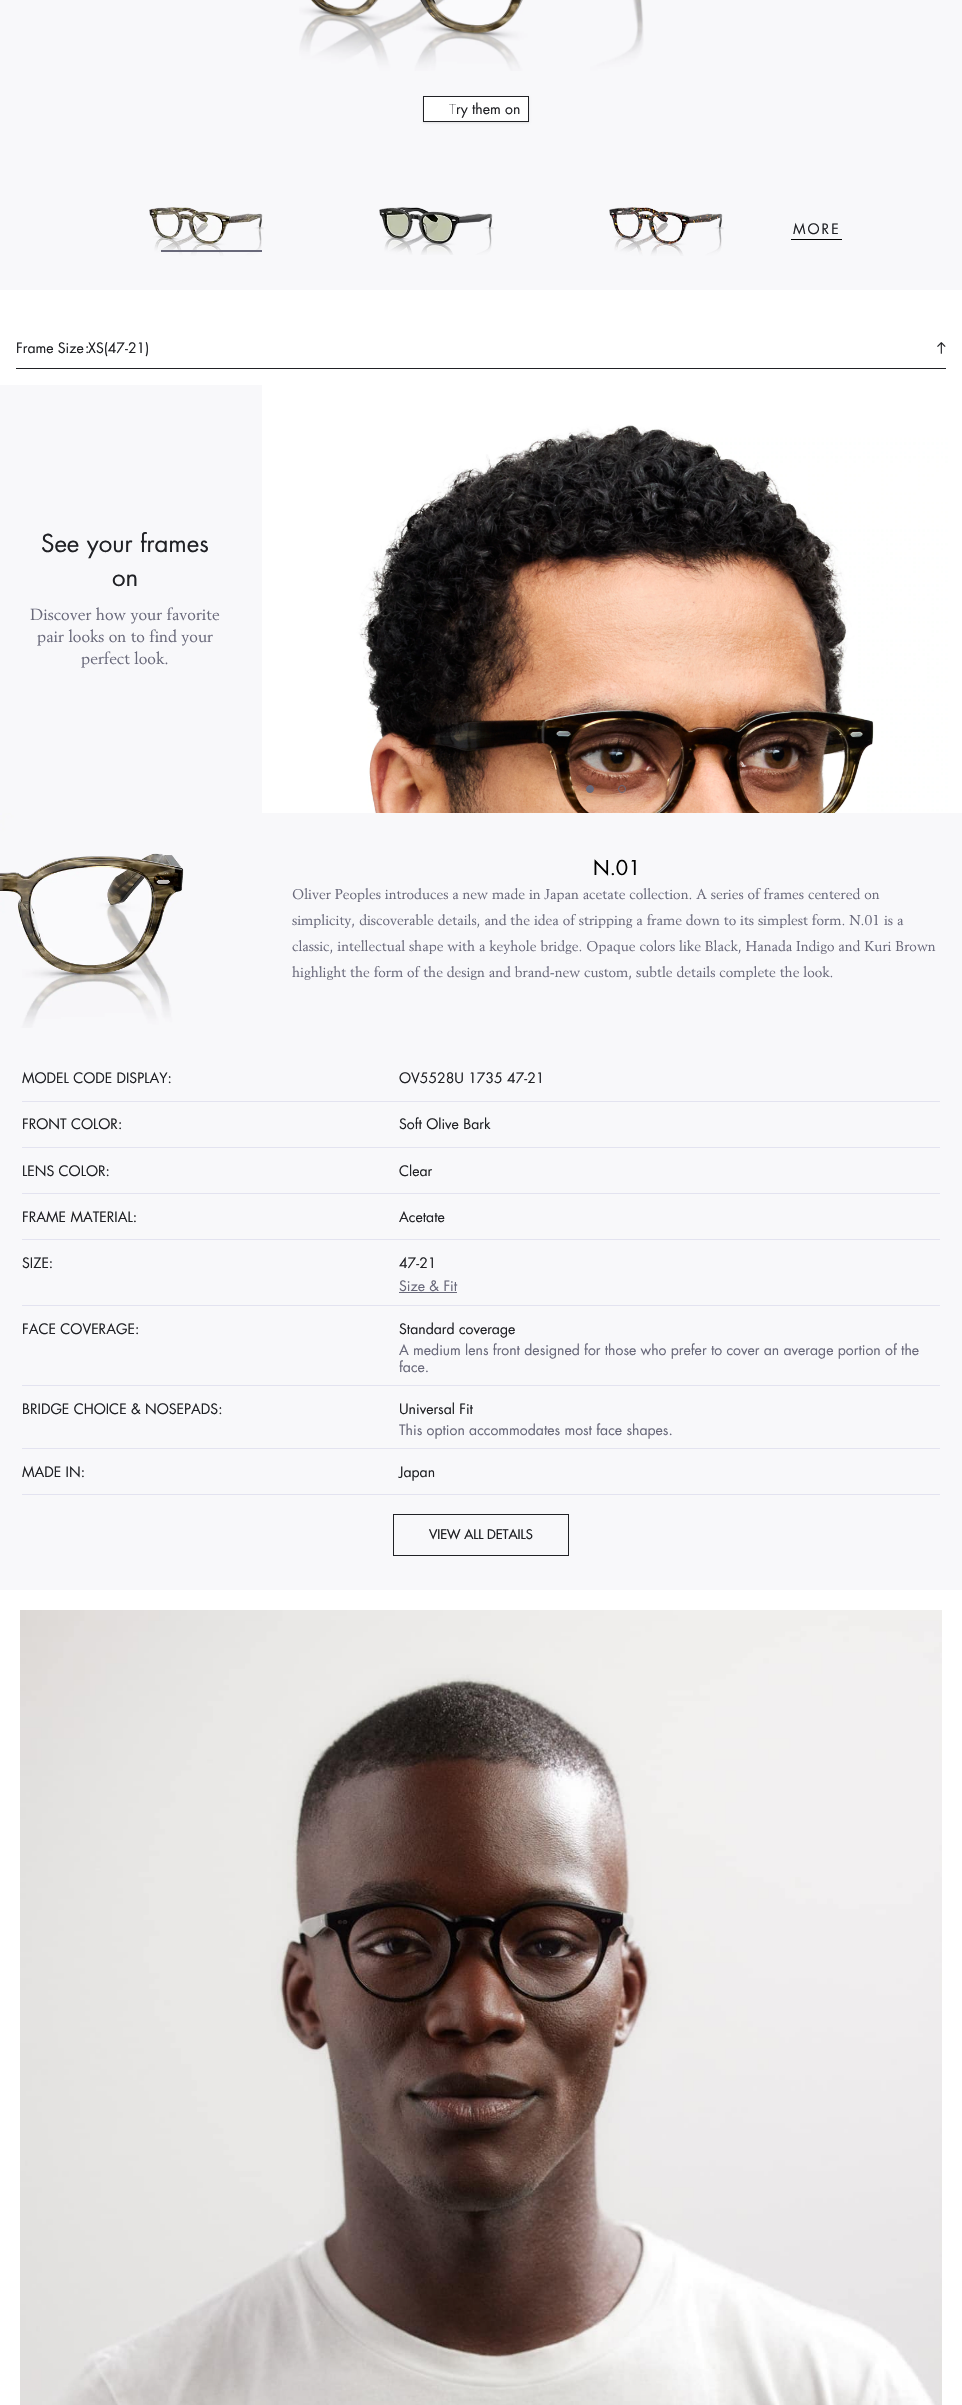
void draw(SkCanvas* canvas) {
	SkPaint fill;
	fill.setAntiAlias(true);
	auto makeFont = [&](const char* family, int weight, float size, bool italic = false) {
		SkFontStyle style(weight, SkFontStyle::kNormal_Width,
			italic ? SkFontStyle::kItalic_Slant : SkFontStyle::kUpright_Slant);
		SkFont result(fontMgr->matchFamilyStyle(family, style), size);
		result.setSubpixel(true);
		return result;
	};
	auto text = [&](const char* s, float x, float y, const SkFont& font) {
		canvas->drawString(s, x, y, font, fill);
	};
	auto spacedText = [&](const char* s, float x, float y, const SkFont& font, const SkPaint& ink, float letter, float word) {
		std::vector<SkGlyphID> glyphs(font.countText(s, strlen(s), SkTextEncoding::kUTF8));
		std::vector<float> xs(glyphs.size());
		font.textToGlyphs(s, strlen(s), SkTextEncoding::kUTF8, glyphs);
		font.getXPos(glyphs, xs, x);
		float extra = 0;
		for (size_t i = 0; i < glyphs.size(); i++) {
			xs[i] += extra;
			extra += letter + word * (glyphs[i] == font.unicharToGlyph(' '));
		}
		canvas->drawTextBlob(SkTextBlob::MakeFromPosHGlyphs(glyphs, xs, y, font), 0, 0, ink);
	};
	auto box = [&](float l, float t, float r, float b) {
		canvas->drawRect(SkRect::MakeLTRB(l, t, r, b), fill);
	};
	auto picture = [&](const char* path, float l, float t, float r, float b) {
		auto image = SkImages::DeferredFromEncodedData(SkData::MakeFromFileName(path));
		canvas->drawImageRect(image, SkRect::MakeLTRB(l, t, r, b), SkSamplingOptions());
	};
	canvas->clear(0xFFF8F8FA);
	picture("image0.png", 299, 0, 644, 71);
	fill.setColor(0x1A000000);
	fill.setMaskFilter(SkMaskFilter::MakeBlur(kNormal_SkBlurStyle, 1));
	canvas->drawRect(SkRect::MakeLTRB(423, 97, 529, 123), fill);
	fill.setMaskFilter(nullptr);
	fill.setColor(0xFFFFFFFF);
	canvas->drawRect(SkRect::MakeLTRB(423.5f, 96.5f, 528.5f, 121.5f), fill);
	fill.setStyle(SkPaint::kStroke_Style);
	fill.setStrokeWidth(1);
	fill.setColor(0xFF202125);
	canvas->drawRect(SkRect::MakeLTRB(423.5f, 96.5f, 528.5f, 121.5f), fill);
	picture("image1.png", 149, 207, 264, 256);
	fill.setStyle(SkPaint::kFill_Style);
	fill.setColor(0xFF69697A);
	box(161, 250, 262, 252);
	picture("image2.png", 379, 207, 494, 255);
	picture("image3.png", 609, 207, 724, 256);
	fill.setColor(0xFF000000);
	box(791, 239, 842, 240);
	fill.setColor(0xFFFFFFFF);
	box(0, 1590, 962, 2405);
	box(0, 290, 962, 385);
	picture("image4.png", 937, 342, 946, 354);
	fill.setColor(0xFF202125);
	box(16, 368, 946, 369);
	picture("image5.png", 262, 385, 950, 813);
	fill.setColor(0xFFFFFFFF);
	box(950, 385, 962, 813);
	fill.setColor(0xFF69697A);
	canvas->drawCircle(590, 789, 3.5f, fill);
	fill.setStyle(SkPaint::kStroke_Style);
	canvas->drawCircle(590, 789, 3.5f, fill);
	canvas->drawCircle(622, 789, 3.5f, fill);
	picture("image6.png", 0, 813, 184, 1028);
	fill.setStyle(SkPaint::kFill_Style);
	fill.setColor(0xFFE3E3F0);
	box(22, 1101, 940, 1102);
	box(22, 1147, 940, 1148);
	box(22, 1193, 940, 1194);
	box(22, 1239, 940, 1240);
	box(22, 1305, 940, 1306);
	fill.setColor(0xFF69697A);
	box(399, 1292, 457, 1293);
	fill.setColor(0xFFE3E3F0);
	box(22, 1385, 940, 1386);
	box(22, 1448, 940, 1449);
	box(22, 1494, 940, 1495);
	fill.setStyle(SkPaint::kStroke_Style);
	fill.setColor(0xFF202125);
	canvas->drawRect(SkRect::MakeLTRB(393.5f, 1514.5f, 568.5f, 1555.5f), fill);
	picture("image7.png", 20, 1610, 942, 2405);
	auto font1 = makeFont("Noto Sans", 100, 14);
	fill.setStyle(SkPaint::kFill_Style);
	text("T", 449, 114, font1);
	auto font2 = makeFont("Futura", 400, 14);
	text("ry them on", 456, 114, font2);
	spacedText("MORE", 793, 234, font2, fill, 2, 0);
	text("Frame Size", 16, 353, font2);
	text(":", 85, 353, font2);
	text("XS(47-21)", 88, 353, font2);
	auto font3 = makeFont("Futura", 400, 24);
	text("See your frames", 41, 552, font3);
	text("on", 112, 586, font3);
	auto font4 = makeFont("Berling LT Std", 400, 16);
	fill.setColor(0xFF69697A);
	text("Discover how your favorite", 30, 620, font4);
	text("pair looks on to find your", 37, 642, font4);
	text("perfect look.", 81, 664, font4);
	auto font5 = makeFont("Futura", 400, 20);
	fill.setColor(0xFF000000);
	text("N.01", 593, 875, font5);
	auto font6 = makeFont("Berling LT Std", 400, 14);
	fill.setColor(0xFF69697A);
	text("Oliver Peoples introduces a new made in Japan acetate collection. A series of frames centered on", 292, 899, font6);
	text("simplicity, discoverable details, and the idea of stripping a frame down to its simplest form. N.01 is a", 292, 925, font6);
	text("classic, intellectual shape with a keyhole bridge. Opaque colors like Black, Hanada Indigo and Kuri Brown", 292, 951, font6);
	text("highlight the form of the design and brand-new custom, subtle details complete the look.", 292, 977, font6);
	fill.setColor(0xFF202125);
	text("MODEL CODE DISPLAY:", 22, 1083, font2);
	text("OV5528U 1735 47-21", 399, 1083, font2);
	text("FRONT COLOR:", 22, 1129, font2);
	text("Soft Olive Bark", 399, 1129, font2);
	text("LENS COLOR:", 22, 1176, font2);
	text("Clear", 399, 1176, font2);
	text("FRAME MATERIAL:", 22, 1222, font2);
	text("Acetate", 399, 1222, font2);
	text("SIZE:", 22, 1268, font2);
	text("47-21", 399, 1268, font2);
	fill.setColor(0xFF69697A);
	text("Size & Fit", 399, 1291, font2);
	fill.setColor(0xFF202125);
	text("FACE COVERAGE:", 22, 1334, font2);
	text("Standard coverage", 399, 1334, font2);
	fill.setColor(0xFF69697A);
	text("A medium lens front designed for those who prefer to cover an average portion of the", 399, 1355, font2);
	text("face.", 399, 1372, font2);
	fill.setColor(0xFF202125);
	text("BRIDGE CHOICE & NOSEPADS:", 22, 1414, font2);
	text("Universal Fit", 399, 1414, font2);
	fill.setColor(0xFF69697A);
	text("This option accommodates most face shapes.", 399, 1435, font2);
	fill.setColor(0xFF202125);
	text("MADE IN:", 22, 1477, font2);
	text("Japan", 399, 1477, font2);
	auto font7 = makeFont("Futura", 500, 13);
	text("VIEW ALL DETAILS", 429, 1539, font7);
}
